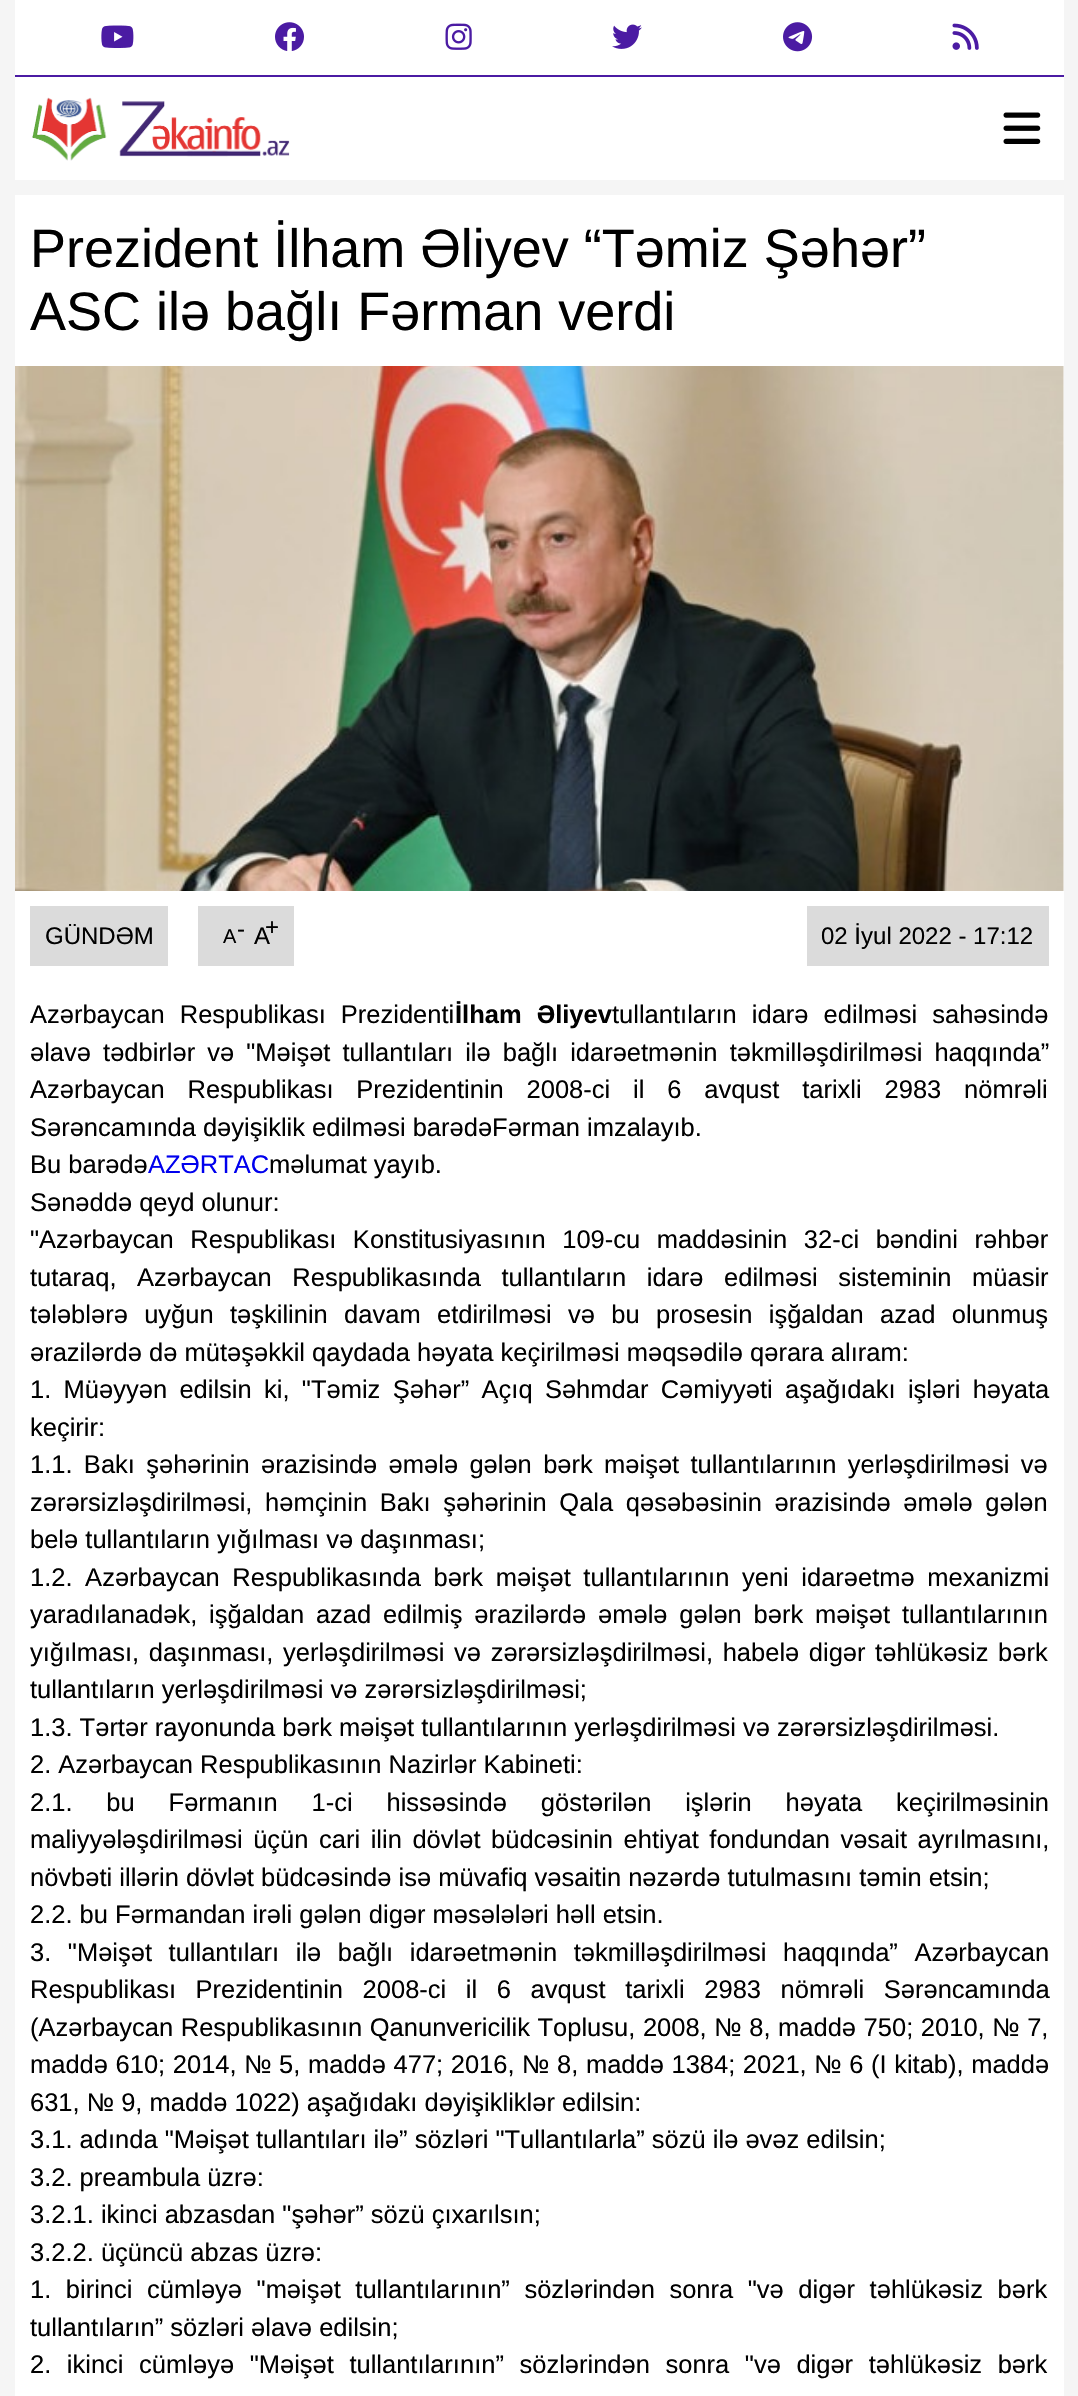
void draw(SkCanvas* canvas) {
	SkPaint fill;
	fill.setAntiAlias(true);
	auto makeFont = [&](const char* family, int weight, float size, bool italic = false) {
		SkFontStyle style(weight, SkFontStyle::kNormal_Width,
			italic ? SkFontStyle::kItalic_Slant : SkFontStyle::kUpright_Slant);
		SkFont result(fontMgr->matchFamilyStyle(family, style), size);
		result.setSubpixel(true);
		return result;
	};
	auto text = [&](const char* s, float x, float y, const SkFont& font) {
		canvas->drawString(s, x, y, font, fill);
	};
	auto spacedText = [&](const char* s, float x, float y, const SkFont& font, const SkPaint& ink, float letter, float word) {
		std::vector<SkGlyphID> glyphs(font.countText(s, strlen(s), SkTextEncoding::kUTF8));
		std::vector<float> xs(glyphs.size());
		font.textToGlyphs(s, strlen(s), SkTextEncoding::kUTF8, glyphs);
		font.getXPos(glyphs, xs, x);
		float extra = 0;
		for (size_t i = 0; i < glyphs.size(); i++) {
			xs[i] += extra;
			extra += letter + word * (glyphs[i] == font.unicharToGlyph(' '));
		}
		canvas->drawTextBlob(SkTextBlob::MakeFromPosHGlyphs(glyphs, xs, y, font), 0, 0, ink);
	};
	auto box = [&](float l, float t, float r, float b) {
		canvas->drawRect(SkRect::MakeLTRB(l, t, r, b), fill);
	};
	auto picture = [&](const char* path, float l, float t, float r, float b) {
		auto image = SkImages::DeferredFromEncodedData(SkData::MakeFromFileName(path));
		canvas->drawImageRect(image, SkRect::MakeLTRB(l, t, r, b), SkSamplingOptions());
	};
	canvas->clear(0xFFF5F5F5);
	fill.setColor(0xFFFFFFFF);
	box(15, 0, 1064, 75);
	picture("image0.png", 101, 25, 134, 48);
	picture("image1.png", 275, 22, 304, 51);
	picture("image2.png", 445, 23, 472, 50);
	picture("image3.png", 612, 24, 642, 49);
	picture("image4.png", 783, 22, 813, 52);
	picture("image5.png", 952, 23, 979, 50);
	box(15, 77, 1064, 180);
	fill.setColor(0xFF4B1BA3);
	box(15, 75, 1064, 77);
	picture("image6.png", 32, 97, 290, 161);
	picture("image7.png", 1003, 112, 1041, 144);
	fill.setColor(0xFFFFFFFF);
	box(15, 195, 1064, 2396);
	picture("image8.png", 15, 366, 1064, 891);
	fill.setColor(0xFFDBDBDB);
	box(30, 906, 168, 966);
	box(198, 906, 294, 966);
	box(807, 906, 1049, 966);
	auto font1 = makeFont("Liberation Sans", 400, 54);
	fill.setColor(0xFF000000);
	text("Prezident İlham Əliyev “Təmiz Şəhər”", 30, 267, font1);
	text("ASC ilə bağlı Fərman verdi", 30, 330, font1);
	auto font2 = makeFont("Liberation Sans", 400, 24);
	text("GÜNDƏM", 45, 944, font2);
	auto font3 = makeFont("Liberation Sans", 400, 20);
	text("A", 223, 943, font3);
	text("-", 237, 937, font2);
	text("A", 254, 944, font2);
	text("+", 265, 935, font2);
	text("02 İyul 2022 - 17:12", 821, 944, font2);
	auto font4 = makeFont("Liberation Sans", 400, 25.5f);
	spacedText("Azərbaycan Respublikası Prezidenti", 30, 1023, font4, fill, 0, 8);
	auto font5 = makeFont("Liberation Sans", 700, 25.5f);
	spacedText("İlham Əliyev", 455, 1023, font5, fill, 0, 8);
	spacedText("tullantıların idarə edilməsi sahəsində", 612, 1023, font4, fill, 0, 8);
	spacedText("əlavə tədbirlər və \"Məişət tullantıları ilə bağlı idarəetmənin təkmilləşdirilməsi haqqında”", 30, 1061, font4, fill, 0, 5);
	spacedText("Azərbaycan Respublikası Prezidentinin 2008-ci il 6 avqust tarixli 2983 nömrəli", 30, 1098, font4, fill, 0, 15.75f);
	text("Sərəncamında dəyişiklik edilməsi barədəFərman imzalayıb.", 30, 1136, font4);
	text("Bu barədə", 30, 1173, font4);
	fill.setColor(0xFF0000EE);
	text("AZƏRTAC", 148, 1173, font4);
	fill.setColor(0xFF000000);
	text("məlumat yayıb.", 269, 1173, font4);
	text("Sənəddə qeyd olunur:", 30, 1211, font4);
	spacedText("\"Azərbaycan Respublikası Konstitusiyasının 109-cu maddəsinin 32-ci bəndini rəhbər", 30, 1248, font4, fill, 0, 9.5f);
	spacedText("tutaraq, Azərbaycan Respublikasında tullantıların idarə edilməsi sisteminin müasir", 30, 1286, font4, fill, 0, 13.5f);
	spacedText("tələblərə uyğun təşkilinin davam etdirilməsi və bu prosesin işğaldan azad olunmuş", 30, 1323, font4, fill, 0, 9.25f);
	text("ərazilərdə də mütəşəkkil qaydada həyata keçirilməsi məqsədilə qərara alıram:", 30, 1361, font4);
	spacedText("1. Müəyyən edilsin ki, \"Təmiz Şəhər” Açıq Səhmdar Cəmiyyəti aşağıdakı işləri həyata", 30, 1398, font4, fill, 0, 5.25f);
	text("keçirir:", 30, 1436, font4);
	spacedText("1.1. Bakı şəhərinin ərazisində əmələ gələn bərk məişət tullantılarının yerləşdirilməsi və", 30, 1473, font4, fill, 0, 4.25f);
	spacedText("zərərsizləşdirilməsi, həmçinin Bakı şəhərinin Qala qəsəbəsinin ərazisində əmələ gələn", 30, 1511, font4, fill, 0, 5.5f);
	text("belə tullantıların yığılması və daşınması;", 30, 1548, font4);
	spacedText("1.2. Azərbaycan Respublikasında bərk məişət tullantılarının yeni idarəetmə mexanizmi", 30, 1586, font4, fill, 0, 5.5f);
	spacedText("yaradılanadək, işğaldan azad edilmiş ərazilərdə əmələ gələn bərk məişət tullantılarının", 30, 1623, font4, fill, 0, 4.75f);
	spacedText("yığılması, daşınması, yerləşdirilməsi və zərərsizləşdirilməsi, habelə digər təhlükəsiz bərk", 30, 1661, font4, fill, 0, 2.5f);
	text("tullantıların yerləşdirilməsi və zərərsizləşdirilməsi;", 30, 1698, font4);
	text("1.3. Tərtər rayonunda bərk məişət tullantılarının yerləşdirilməsi və zərərsizləşdirilməsi.", 30, 1736, font4);
	text("2. Azərbaycan Respublikasının Nazirlər Kabineti:", 30, 1773, font4);
	spacedText("2.1. bu Fərmanın 1-ci hissəsində göstərilən işlərin həyata keçirilməsinin", 30, 1811, font4, fill, 0, 26.75f);
	spacedText("maliyyələşdirilməsi üçün cari ilin dövlət büdcəsinin ehtiyat fondundan vəsait ayrılmasını,", 30, 1848, font4, fill, 0, 3.5f);
	text("növbəti illərin dövlət büdcəsində isə müvafiq vəsaitin nəzərdə tutulmasını təmin etsin;", 30, 1886, font4);
	text("2.2. bu Fərmandan irəli gələn digər məsələləri həll etsin.", 30, 1923, font4);
	spacedText("3. \"Məişət tullantıları ilə bağlı idarəetmənin təkmilləşdirilməsi haqqında” Azərbaycan", 30, 1961, font4, fill, 0, 9.5f);
	spacedText("Respublikası Prezidentinin 2008-ci il 6 avqust tarixli 2983 nömrəli Sərəncamında", 30, 1998, font4, fill, 0, 12.5f);
	spacedText("(Azərbaycan Respublikasının Qanunvericilik Toplusu, 2008, № 8, maddə 750; 2010, № 7,", 30, 2036, font4, fill, 0, 0.5f);
	spacedText("maddə 610; 2014, № 5, maddə 477; 2016, № 8, maddə 1384; 2021, № 6 (I kitab), maddə", 30, 2073, font4, fill, 0, 0.5f);
	text("631, № 9, maddə 1022) aşağıdakı dəyişikliklər edilsin:", 30, 2111, font4);
	text("3.1. adında \"Məişət tullantıları ilə” sözləri \"Tullantılarla” sözü ilə əvəz edilsin;", 30, 2148, font4);
	text("3.2. preambula üzrə:", 30, 2186, font4);
	text("3.2.1. ikinci abzasdan \"şəhər” sözü çıxarılsın;", 30, 2223, font4);
	text("3.2.2. üçüncü abzas üzrə:", 30, 2261, font4);
	spacedText("1. birinci cümləyə \"məişət tullantılarının” sözlərindən sonra \"və digər təhlükəsiz bərk", 30, 2298, font4, fill, 0, 7.5f);
	text("tullantıların” sözləri əlavə edilsin;", 30, 2336, font4);
	spacedText("2. ikinci cümləyə \"Məişət tullantılarının” sözlərindən sonra \"və digər təhlükəsiz bərk", 30, 2373, font4, fill, 0, 8.5f);
}
